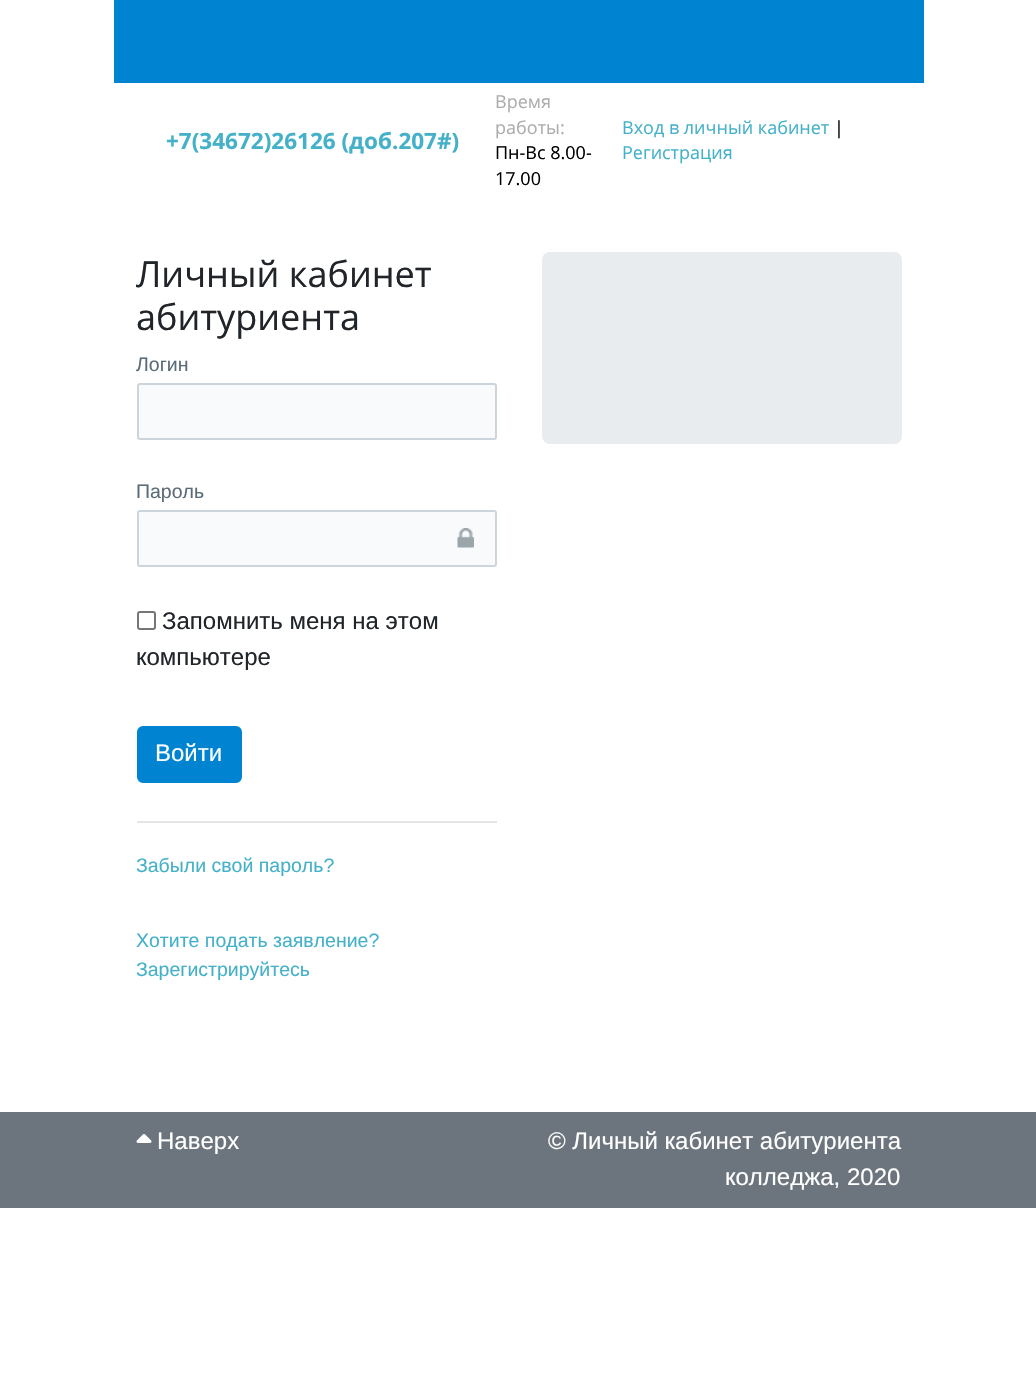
void draw(SkCanvas* canvas) {
	SkPaint fill;
	fill.setAntiAlias(true);
	auto makeFont = [&](const char* family, int weight, float size, bool italic = false) {
		SkFontStyle style(weight, SkFontStyle::kNormal_Width,
			italic ? SkFontStyle::kItalic_Slant : SkFontStyle::kUpright_Slant);
		SkFont result(fontMgr->matchFamilyStyle(family, style), size);
		result.setSubpixel(true);
		return result;
	};
	auto text = [&](const char* s, float x, float y, const SkFont& font) {
		canvas->drawString(s, x, y, font, fill);
	};
	auto box = [&](float l, float t, float r, float b) {
		canvas->drawRect(SkRect::MakeLTRB(l, t, r, b), fill);
	};
	auto roundBox = [&](float l, float t, float r, float b, float radius) {
		canvas->drawRoundRect(SkRect::MakeLTRB(l, t, r, b), radius, radius, fill);
	};
	auto picture = [&](const char* path, float l, float t, float r, float b) {
		auto image = SkImages::DeferredFromEncodedData(SkData::MakeFromFileName(path));
		canvas->drawImageRect(image, SkRect::MakeLTRB(l, t, r, b), SkSamplingOptions());
	};
	canvas->clear(0xFFFFFFFF);
	fill.setColor(0xFF0083D1);
	box(114, 0, 924, 83);
	fill.setColor(0xFFF8FAFC);
	canvas->drawRoundRect(SkRect::MakeLTRB(138, 384, 496, 439), 2, 2, fill);
	fill.setStyle(SkPaint::kStroke_Style);
	fill.setStrokeWidth(2);
	fill.setColor(0xFFCCD5DB);
	canvas->drawRoundRect(SkRect::MakeLTRB(138, 384, 496, 439), 2, 2, fill);
	fill.setStyle(SkPaint::kFill_Style);
	fill.setColor(0xFFF8FAFC);
	canvas->drawRoundRect(SkRect::MakeLTRB(138, 511, 496, 566), 2, 2, fill);
	fill.setStyle(SkPaint::kStroke_Style);
	fill.setColor(0xFFCCD5DB);
	canvas->drawRoundRect(SkRect::MakeLTRB(138, 511, 496, 566), 2, 2, fill);
	picture("image0.png", 457, 528, 474, 548);
	fill.setColor(0xFF767676);
	canvas->drawRoundRect(SkRect::MakeLTRB(138, 612, 155, 629), 2, 2, fill);
	fill.setStyle(SkPaint::kFill_Style);
	fill.setColor(0xFF0083D1);
	canvas->drawRoundRect(SkRect::MakeLTRB(138, 727, 241, 782), 5, 5, fill);
	fill.setStyle(SkPaint::kStroke_Style);
	canvas->drawRoundRect(SkRect::MakeLTRB(138, 727, 241, 782), 5, 5, fill);
	fill.setStyle(SkPaint::kFill_Style);
	fill.setColor(0xFFE5E5E5);
	box(137, 821, 497, 823);
	fill.setColor(0xFFE9ECEF);
	roundBox(542, 252, 902, 444, 8);
	fill.setColor(0xFF6C757D);
	box(0, 1112, 1036, 1208);
	picture("image1.png", 136, 1134, 152, 1143);
	auto font1 = makeFont("Open Sans", 700, 22.5f);
	fill.setColor(0xFF44B1C9);
	text("+7(34672)26126 (доб.207#)", 166, 149, font1);
	auto font2 = makeFont("Open Sans", 400, 18);
	fill.setColor(0xFFADADAD);
	text("Время", 495, 108, font2);
	text("работы:", 495, 134, font2);
	fill.setColor(0xFF000000);
	text("Пн-Вс 8.00-", 495, 159, font2);
	text("17.00", 495, 185, font2);
	fill.setColor(0xFF44B1C9);
	text("Вход в личный кабинет", 622, 134, font2);
	fill.setColor(0xFF000000);
	text("|", 834, 134, font2);
	fill.setColor(0xFF44B1C9);
	text("Регистрация", 622, 159, font2);
	auto font3 = makeFont("Open Sans", 400, 36);
	fill.setColor(0xFF212529);
	text("Личный кабинет", 136, 287, font3);
	text("абитуриента", 136, 330, font3);
	auto font4 = makeFont("Liberation Sans", 400, 19.5f);
	fill.setColor(0xFF5A6C77);
	text("Логин", 136, 371, font4);
	text("Пароль", 136, 498, font4);
	auto font5 = makeFont("Liberation Sans", 400, 24);
	fill.setColor(0xFF212529);
	text("Запомнить меня на этом", 162, 629, font5);
	text("компьютере", 136, 665, font5);
	fill.setColor(0xFFFFFFFF);
	text("Войти", 155, 761, font5);
	fill.setColor(0xFF44B1C9);
	text("Забыли свой пароль?", 136, 872, font4);
	text("Хотите подать заявление?", 136, 947, font4);
	text("Зарегистрируйтесь", 136, 976, font4);
	fill.setColor(0xFFFFFFFF);
	text("Наверх", 157, 1149, font5);
	text("© Личный кабинет абитуриента", 548, 1149, font5);
	text("колледжа, 2020", 725, 1185, font5);
}
